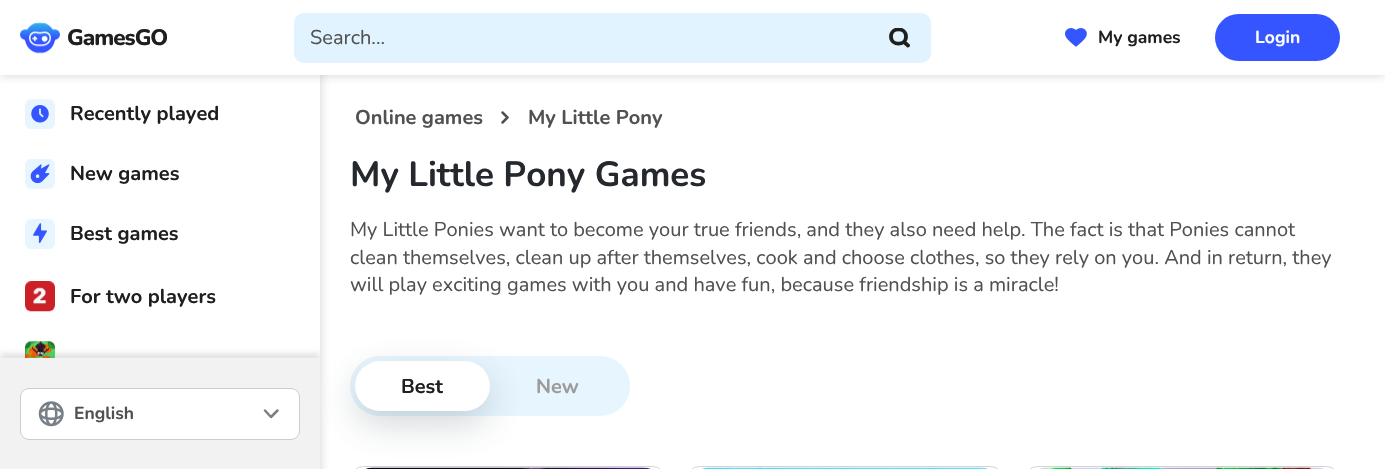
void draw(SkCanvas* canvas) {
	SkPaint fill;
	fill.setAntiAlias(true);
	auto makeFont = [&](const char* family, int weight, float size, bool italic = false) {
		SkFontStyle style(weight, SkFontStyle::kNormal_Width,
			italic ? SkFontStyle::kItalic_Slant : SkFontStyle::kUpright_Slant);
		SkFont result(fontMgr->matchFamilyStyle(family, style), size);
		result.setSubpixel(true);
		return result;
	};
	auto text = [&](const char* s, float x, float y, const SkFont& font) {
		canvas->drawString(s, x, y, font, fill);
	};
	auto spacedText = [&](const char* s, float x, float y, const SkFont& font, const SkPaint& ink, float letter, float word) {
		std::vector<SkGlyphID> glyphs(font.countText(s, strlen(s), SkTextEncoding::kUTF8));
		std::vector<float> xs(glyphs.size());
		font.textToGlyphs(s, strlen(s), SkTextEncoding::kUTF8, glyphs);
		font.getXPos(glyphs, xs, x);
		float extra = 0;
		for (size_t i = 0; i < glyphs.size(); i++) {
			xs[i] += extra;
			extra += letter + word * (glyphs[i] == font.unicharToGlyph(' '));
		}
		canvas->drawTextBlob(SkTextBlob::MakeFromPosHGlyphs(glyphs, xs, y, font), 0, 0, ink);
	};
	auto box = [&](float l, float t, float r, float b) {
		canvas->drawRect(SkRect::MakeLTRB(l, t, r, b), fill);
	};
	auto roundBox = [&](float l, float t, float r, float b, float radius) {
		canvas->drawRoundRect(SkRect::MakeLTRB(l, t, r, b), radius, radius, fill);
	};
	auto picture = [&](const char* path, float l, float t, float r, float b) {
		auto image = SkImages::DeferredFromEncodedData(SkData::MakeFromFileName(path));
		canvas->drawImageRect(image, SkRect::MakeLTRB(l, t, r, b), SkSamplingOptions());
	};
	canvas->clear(0xFFFFFFFF);
	fill.setColor(0x331B1F24);
	fill.setMaskFilter(SkMaskFilter::MakeBlur(kNormal_SkBlurStyle, 5));
	canvas->drawRect(SkRect::MakeLTRB(0, 8, 320, 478), fill);
	fill.setMaskFilter(nullptr);
	fill.setColor(0xFFE6F5FE);
	roundBox(350, 356, 630, 416, 30);
	fill.setColor(0x3B3D4C57);
	fill.setMaskFilter(SkMaskFilter::MakeBlur(kNormal_SkBlurStyle, 18));
	canvas->drawRoundRect(SkRect::MakeLTRB(355, 374, 490, 424), 25, 25, fill);
	fill.setMaskFilter(nullptr);
	fill.setColor(0xFFFFFFFF);
	box(0, 75, 320, 358);
	fill.setColor(0x33201F1F);
	fill.setMaskFilter(SkMaskFilter::MakeBlur(kNormal_SkBlurStyle, 5));
	canvas->drawRect(SkRect::MakeLTRB(0, 0, 1385, 75), fill);
	fill.setMaskFilter(nullptr);
	fill.setColor(0xFFFFFFFF);
	box(0, 0, 1385, 75);
	picture("image0.png", 20, 22, 60, 54);
	fill.setColor(0xFFE0F3FF);
	roundBox(294, 13, 931, 63, 10);
	canvas->save();
	canvas->clipRect(SkRect::MakeLTRB(889, 28, 910, 48));
	fill.setStyle(SkPaint::kStroke_Style);
	fill.setStrokeWidth(3.8f);
	fill.setStrokeCap(SkPaint::kRound_Cap);
	fill.setStrokeJoin(SkPaint::kRound_Join);
	fill.setColor(0xFF201F1F);
	canvas->drawPath(SkPathBuilder().moveTo(908, 45.5f).lineTo(904, 42).moveTo(906, 36.5f).cubicTo(906, 46, 891, 46, 891, 36.5f).cubicTo(891, 27, 906, 27, 906, 36.5f).close().detach(), fill);
	canvas->restore();
	picture("image1.png", 1065, 28, 1087, 47);
	fill.setStyle(SkPaint::kFill_Style);
	fill.setColor(0xFF3455FF);
	roundBox(1215, 14, 1340, 61, 23.5f);
	picture("image2.png", 25, 99, 55, 129);
	picture("image3.png", 25, 159, 55, 189);
	picture("image4.png", 25, 219, 55, 249);
	picture("image5.png", 25, 281, 55, 312);
	picture("image6.png", 25, 341, 55, 358);
	canvas->save();
	canvas->clipRect(SkRect::MakeLTRB(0, 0, 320, 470));
	fill.setColor(0x1F201F1F);
	fill.setMaskFilter(SkMaskFilter::MakeBlur(kNormal_SkBlurStyle, 2.5f));
	canvas->drawRect(SkRect::MakeLTRB(0, 353, 320, 465), fill);
	fill.setMaskFilter(nullptr);
	canvas->restore();
	fill.setColor(0xFFF2F2F2);
	box(0, 358, 320, 469);
	fill.setColor(0xFFFFFFFF);
	canvas->drawRoundRect(SkRect::MakeLTRB(20.5f, 388.5f, 299.5f, 439.5f), 8.5f, 8.5f, fill);
	fill.setStyle(SkPaint::kStroke_Style);
	fill.setStrokeWidth(1);
	fill.setStrokeCap(SkPaint::kButt_Cap);
	fill.setStrokeJoin(SkPaint::kMiter_Join);
	fill.setColor(0xFFCDCDCD);
	canvas->drawRoundRect(SkRect::MakeLTRB(20.5f, 388.5f, 299.5f, 439.5f), 8.5f, 8.5f, fill);
	picture("image7.png", 38, 401, 64, 427);
	fill.setStrokeWidth(2.5f);
	fill.setStrokeCap(SkPaint::kRound_Cap);
	fill.setStrokeJoin(SkPaint::kRound_Join);
	fill.setColor(0xFF797F87);
	canvas->drawPath(SkPathBuilder().moveTo(265, 410.5f).lineTo(271, 417).lineTo(277.5f, 410.5f).detach(), fill);
	fill.setColor(0xFF525151);
	canvas->drawPath(SkPathBuilder().moveTo(502.5f, 122.5f).lineTo(507.5f, 117.5f).lineTo(502.5f, 112.5f).detach(), fill);
	fill.setStyle(SkPaint::kFill_Style);
	fill.setColor(0xFFFFFFFF);
	roundBox(355, 361, 490, 411, 25);
	fill.setStyle(SkPaint::kStroke_Style);
	fill.setStrokeWidth(1);
	fill.setStrokeCap(SkPaint::kButt_Cap);
	fill.setStrokeJoin(SkPaint::kMiter_Join);
	fill.setColor(0xFFD3D3D3);
	canvas->drawRoundRect(SkRect::MakeLTRB(350.5f, 466.5f, 665.5f, 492.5f), 22.5f, 22.5f, fill);
	picture("image8.png", 365, 467, 651, 469);
	canvas->drawRoundRect(SkRect::MakeLTRB(686.5f, 466.5f, 1003.5f, 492.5f), 22.5f, 22.5f, fill);
	picture("image9.png", 702, 467, 988, 469);
	canvas->drawRoundRect(SkRect::MakeLTRB(1024.5f, 466.5f, 1339.5f, 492.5f), 22.5f, 22.5f, fill);
	picture("image10.png", 1040, 467, 1324, 469);
	auto font1 = makeFont("Nunito", 800, 22.5f);
	fill.setStyle(SkPaint::kFill_Style);
	fill.setColor(0xFF201F1F);
	spacedText("GamesGO", 67, 45, font1, fill, -1, 0);
	auto font2 = makeFont("Nunito", 400, 20);
	fill.setColor(0xFF525151);
	text("Search...", 310, 44, font2);
	auto font3 = makeFont("Nunito", 700, 17.5f);
	fill.setColor(0xFF201F1F);
	text("My games", 1098, 43, font3);
	fill.setColor(0xFFFFFFFF);
	text("Login", 1255, 43, font3);
	auto font4 = makeFont("Nunito", 700, 20);
	fill.setColor(0xFF201F1F);
	text("Recently played", 70, 120, font4);
	text("New games", 70, 180, font4);
	text("Best games", 70, 240, font4);
	text("For two players", 70, 303, font4);
	fill.setColor(0xFF525151);
	text("English", 74, 419, font3);
	text("Online games", 355, 124, font4);
	text("My Little Pony", 528, 124, font4);
	auto font5 = makeFont("Nunito", 700, 35);
	fill.setColor(0xFF25292E);
	text("My Little Pony Games", 350, 186, font5);
	fill.setColor(0xFF525151);
	text("My Little Ponies want to become your true friends, and they also need help. The fact is that Ponies cannot", 350, 236, font2);
	text("clean themselves, clean up after themselves, cook and choose clothes, so they rely on you. And in return, they", 350, 264, font2);
	text("will play exciting games with you and have fun, because friendship is a miracle!", 350, 291, font2);
	fill.setColor(0xFF201F1F);
	text("Best", 401, 393, font4);
	fill.setColor(0xFF9C9B9B);
	text("New", 536, 393, font4);
}
